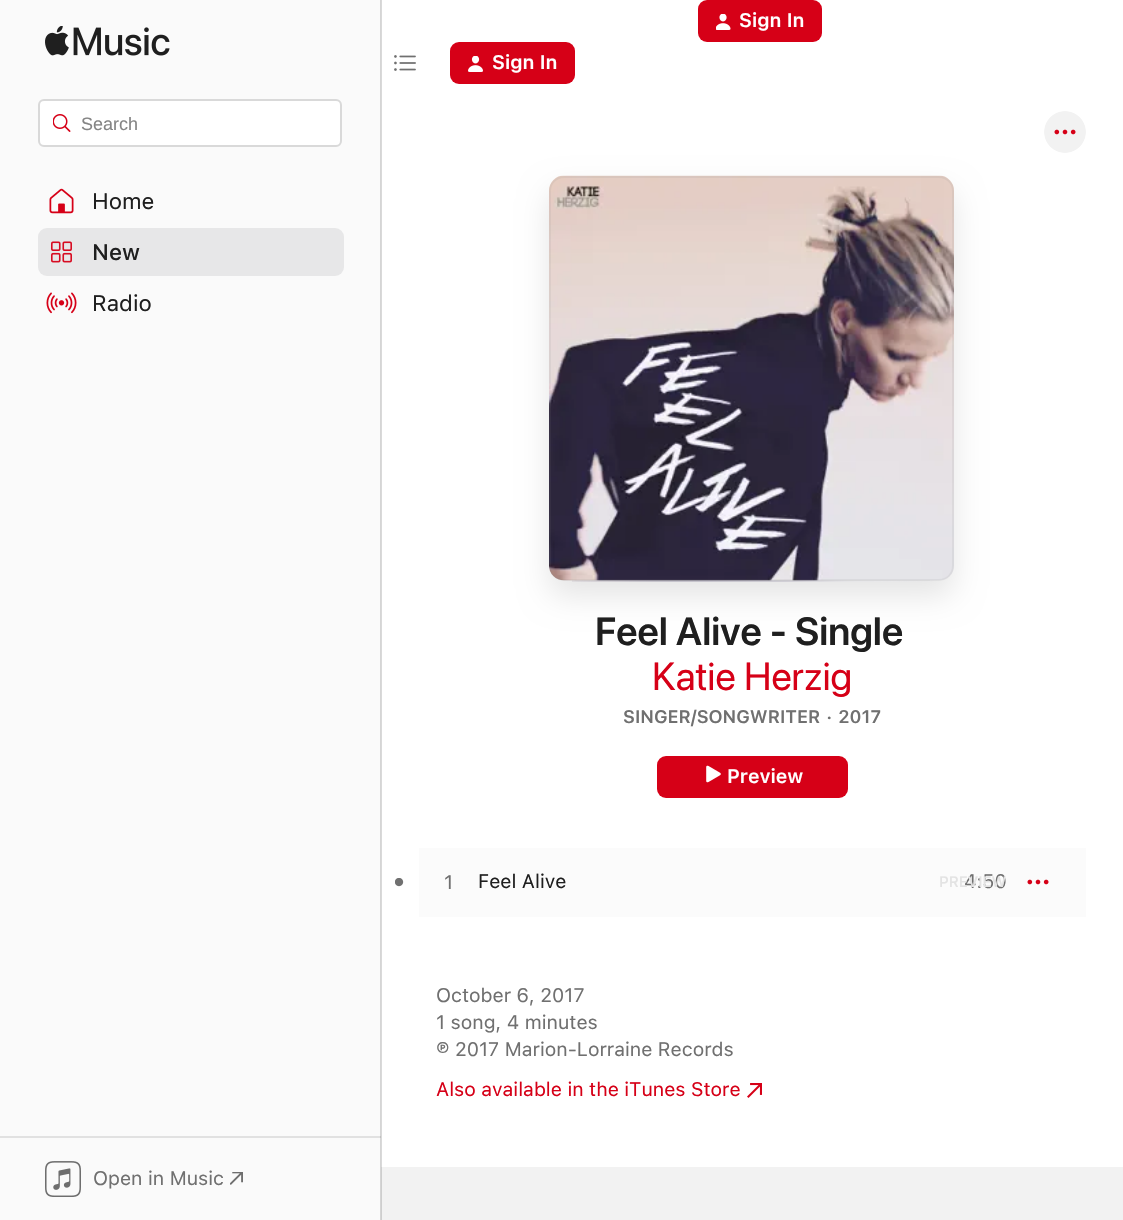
void draw(SkCanvas* canvas) {
	SkPaint fill;
	fill.setAntiAlias(true);
	auto makeFont = [&](const char* family, int weight, float size, bool italic = false) {
		SkFontStyle style(weight, SkFontStyle::kNormal_Width,
			italic ? SkFontStyle::kItalic_Slant : SkFontStyle::kUpright_Slant);
		SkFont result(fontMgr->matchFamilyStyle(family, style), size);
		result.setSubpixel(true);
		return result;
	};
	auto text = [&](const char* s, float x, float y, const SkFont& font) {
		canvas->drawString(s, x, y, font, fill);
	};
	auto box = [&](float l, float t, float r, float b) {
		canvas->drawRect(SkRect::MakeLTRB(l, t, r, b), fill);
	};
	auto roundBox = [&](float l, float t, float r, float b, float radius) {
		canvas->drawRoundRect(SkRect::MakeLTRB(l, t, r, b), radius, radius, fill);
	};
	auto picture = [&](const char* path, float l, float t, float r, float b) {
		auto image = SkImages::DeferredFromEncodedData(SkData::MakeFromFileName(path));
		canvas->drawImageRect(image, SkRect::MakeLTRB(l, t, r, b), SkSamplingOptions());
	};
	canvas->clear(0xFFFFFFFF);
	fill.setColor(0xFFD9D9D9);
	box(381, 0, 382, 1167);
	fill.setColor(0xFFD60017);
	roundBox(698, 0, 822, 42, 9);
	picture("image0.png", 716, 14, 731, 30);
	picture("image1.png", 394, 55, 416, 71);
	roundBox(450, 42, 575, 84, 9);
	picture("image2.png", 468, 56, 483, 72);
	fill.setColor(0xFFFAFAFA);
	box(0, 0, 380, 1220);
	fill.setColor(0xFFE1E1E1);
	box(0, 1136, 381, 1138);
	fill.setColor(0xFFD5D5D5);
	box(380, 0, 381, 1220);
	fill.setColor(0xFFC0C0C0);
	box(380, 1136, 381, 1138);
	picture("image3.png", 45, 26, 170, 56);
	fill.setColor(0xFFFFFFFF);
	canvas->drawRoundRect(SkRect::MakeLTRB(39, 100, 341, 146), 5, 5, fill);
	fill.setStyle(SkPaint::kStroke_Style);
	fill.setStrokeWidth(2);
	fill.setColor(0xFFD9D9D9);
	canvas->drawRoundRect(SkRect::MakeLTRB(39, 100, 341, 146), 5, 5, fill);
	picture("image4.png", 53, 114, 71, 132);
	picture("image5.png", 49, 188, 74, 214);
	fill.setStyle(SkPaint::kFill_Style);
	fill.setColor(0xFFE7E7E8);
	roundBox(38, 228, 344, 276, 9);
	picture("image6.png", 51, 241, 72, 263);
	picture("image7.png", 46, 292, 77, 314);
	picture("image8.png", 45, 1161, 81, 1197);
	picture("image9.png", 230, 1172, 243, 1185);
	picture("image10.png", 1044, 111, 1086, 153);
	fill.setColor(0x1A000000);
	fill.setMaskFilter(SkMaskFilter::MakeBlur(kNormal_SkBlurStyle, 15));
	canvas->drawRoundRect(SkRect::MakeLTRB(549, 191, 954, 596), 15, 15, fill);
	fill.setMaskFilter(nullptr);
	picture("image12.png", 572, 580, 933, 582);
	fill.setStyle(SkPaint::kStroke_Style);
	fill.setStrokeWidth(1);
	fill.setColor(0x0A808080);
	canvas->drawRect(SkRect::MakeLTRB(575.5f, 224.5f, 929.5f, 580.5f), fill);
	picture("image11.png", 549, 175, 954, 581);
	fill.setStrokeWidth(2);
	fill.setColor(0x1A808080);
	canvas->drawRoundRect(SkRect::MakeLTRB(550, 177, 953, 580), 14, 14, fill);
	fill.setStyle(SkPaint::kFill_Style);
	fill.setColor(0xFFD60017);
	roundBox(657, 756, 848, 798, 9);
	picture("image13.png", 706, 765, 721, 783);
	fill.setColor(0xFFFBFBFB);
	box(419, 848, 1086, 917);
	picture("image14.png", 395, 878, 404, 887);
	picture("image15.png", 1027, 879, 1049, 885);
	picture("image16.png", 747, 1083, 762, 1098);
	fill.setColor(0xFFF2F2F2);
	box(382, 1167, 1123, 1220);
	fill.setColor(0xFFCECECE);
	box(381, 1167, 382, 1220);
	auto font1 = makeFont("SF", 600, 19.5f);
	fill.setColor(0xFFFFFFFF);
	text("Sign In", 739, 27, font1);
	text("Sign In", 492, 69, font1);
	auto font2 = makeFont("Liberation Sans", 400, 18);
	fill.setColor(0xFF858585);
	text("Search", 81, 130, font2);
	auto font3 = makeFont("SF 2", 400, 22.5f);
	fill.setColor(0xFF1F1F1F);
	text("Home", 92, 209, font3);
	auto font4 = makeFont("SF", 500, 22.5f);
	text("New", 92, 260, font4);
	text("Radio", 92, 311, font3);
	auto font5 = makeFont("SF 2", 400, 19.5f);
	fill.setColor(0xFF707070);
	text("Open in Music", 93, 1185, font5);
	auto font6 = makeFont("SF 2", 600, 39);
	fill.setColor(0xFF1F1F1F);
	text("Feel Alive - Single", 595, 645, font6);
	auto font7 = makeFont("SF", 400, 39);
	fill.setColor(0xFFD60017);
	text("Katie Herzig", 652, 690, font7);
	auto font8 = makeFont("SF", 600, 18);
	fill.setColor(0xFF707070);
	text("SINGER/SONGWRITER · 2017", 623, 723, font8);
	fill.setColor(0xFFFFFFFF);
	text("Preview", 727, 783, font1);
	fill.setColor(0xFF707070);
	text("1", 444, 889, font5);
	fill.setColor(0xFF1F1F1F);
	text("Feel Alive", 478, 888, font5);
	fill.setColor(0xFF707070);
	text("4:50", 964, 888, font5);
	auto font9 = makeFont("SF", 500, 15);
	fill.setColor(0xFFE3E3E3);
	text("PREVIEW", 939, 887, font9);
	fill.setColor(0xFF707070);
	text("October 6, 2017", 436, 1002, font5);
	text("1 song, 4 minutes", 436, 1029, font5);
	text("℗ 2017 Marion-Lorraine Records", 436, 1056, font5);
	fill.setColor(0xFFD60017);
	text("Also available in the iTunes Store", 436, 1096, font5);
}
